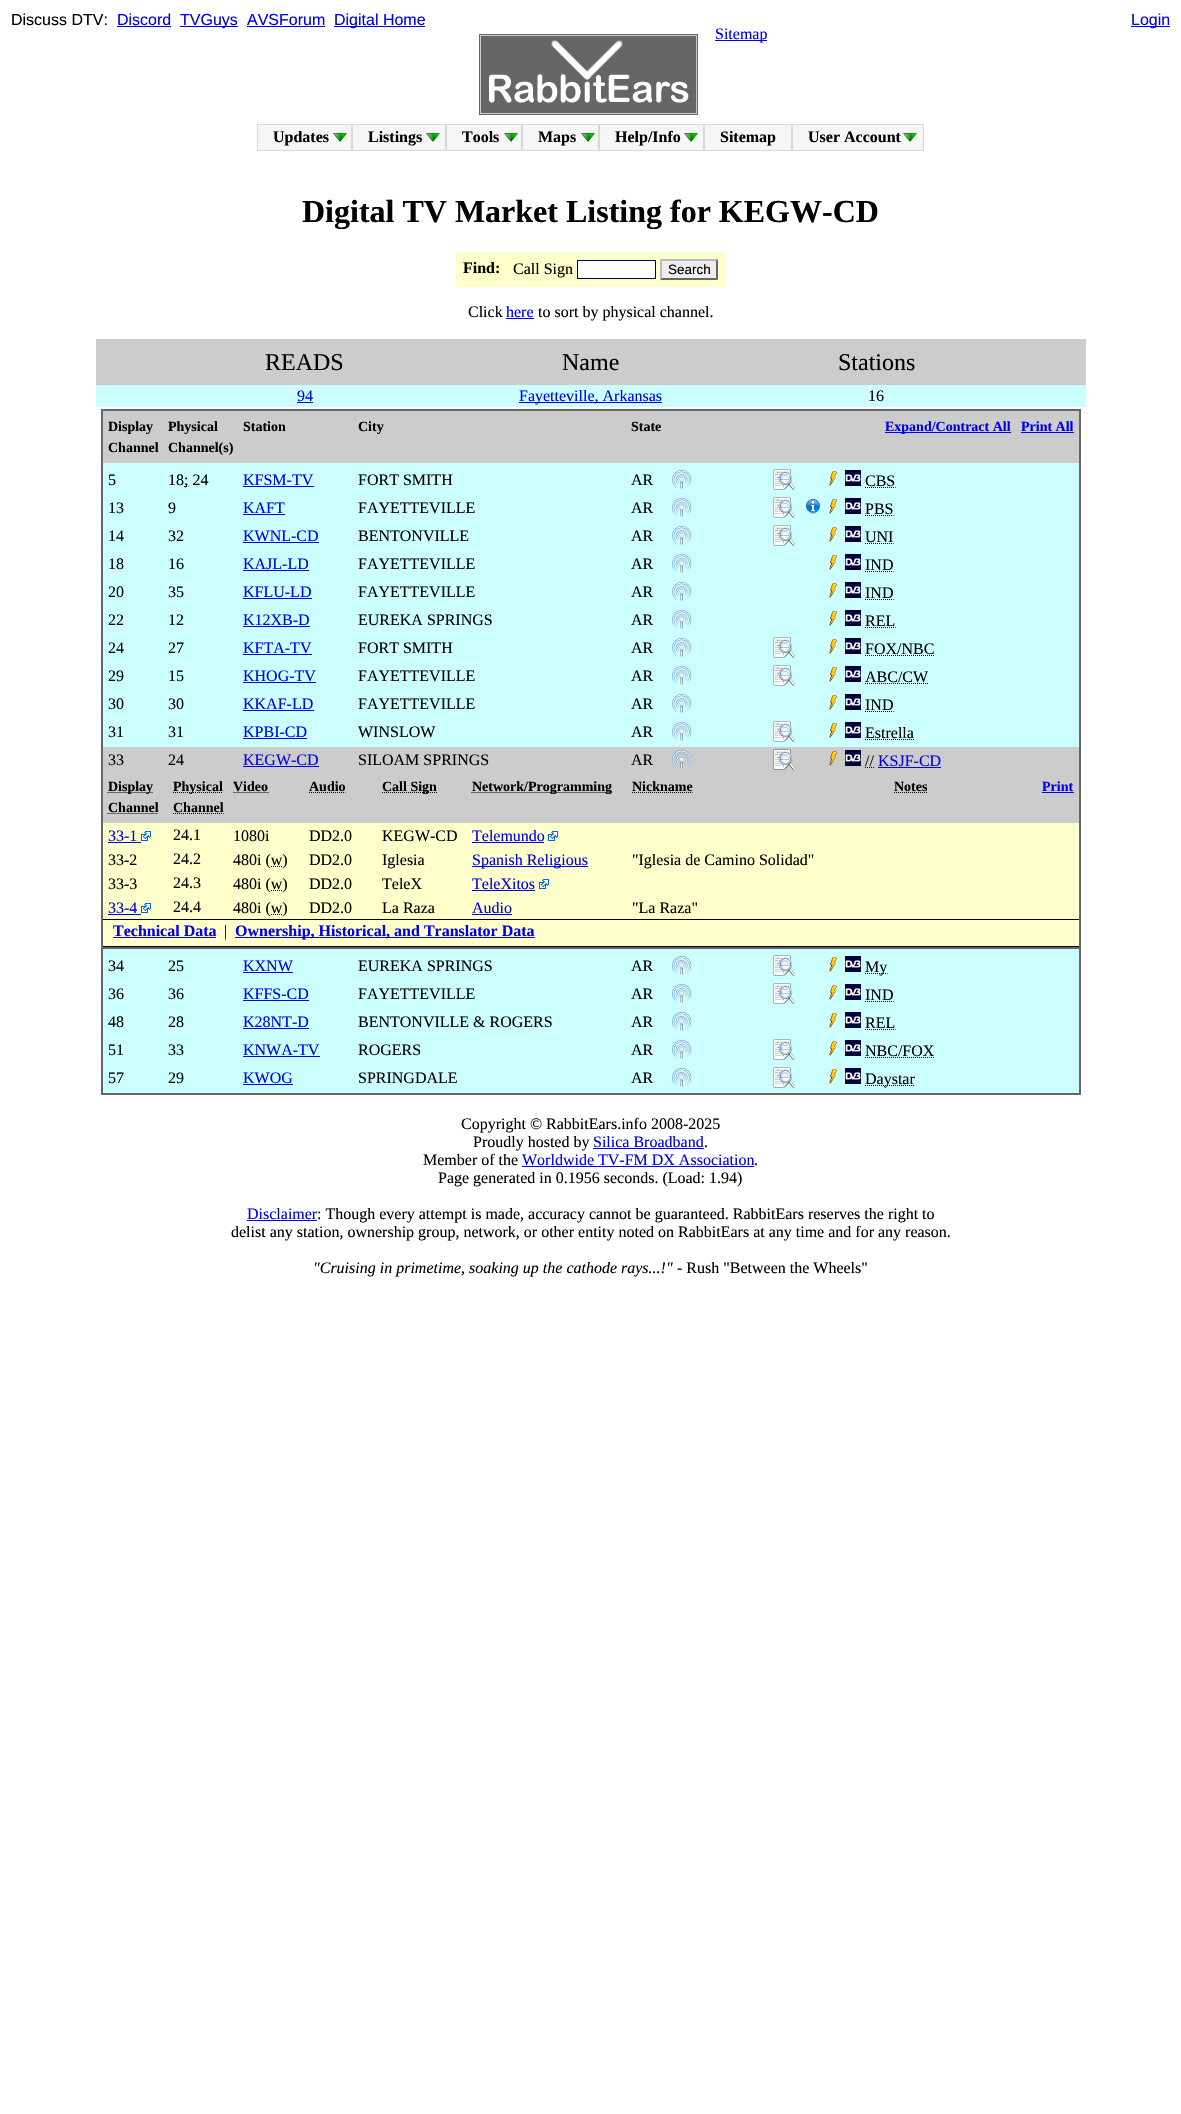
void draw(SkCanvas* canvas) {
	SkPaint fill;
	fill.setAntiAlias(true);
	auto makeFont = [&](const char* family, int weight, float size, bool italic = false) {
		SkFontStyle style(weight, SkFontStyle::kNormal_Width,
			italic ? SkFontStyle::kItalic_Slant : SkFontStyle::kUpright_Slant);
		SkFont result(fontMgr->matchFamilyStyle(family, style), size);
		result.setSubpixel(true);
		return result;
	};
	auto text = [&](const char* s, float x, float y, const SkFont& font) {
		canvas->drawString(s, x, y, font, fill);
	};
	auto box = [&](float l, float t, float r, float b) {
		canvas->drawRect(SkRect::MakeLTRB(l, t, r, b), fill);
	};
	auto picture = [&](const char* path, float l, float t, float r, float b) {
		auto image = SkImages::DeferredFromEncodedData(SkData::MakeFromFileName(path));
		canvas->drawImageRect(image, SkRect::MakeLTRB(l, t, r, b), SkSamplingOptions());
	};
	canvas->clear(0xFFFFFFFF);
	fill.setColor(0xFF0000EE);
	box(117, 26, 171, 27);
	box(180, 26, 238, 27);
	box(247, 26, 325, 27);
	box(334, 26, 425, 27);
	box(1131, 26, 1170, 27);
	fill.setStyle(SkPaint::kStroke_Style);
	fill.setStrokeWidth(1);
	fill.setColor(0xFFCCCCCC);
	canvas->drawRect(SkRect::MakeLTRB(480.5f, 35.5f, 696.5f, 113.5f), fill);
	picture("image0.png", 481, 36, 696, 113);
	fill.setColor(0xFF666666);
	canvas->drawRect(SkRect::MakeLTRB(479.5f, 34.5f, 697.5f, 114.5f), fill);
	fill.setStyle(SkPaint::kFill_Style);
	fill.setColor(0xFF0000EE);
	box(715, 40, 767, 41);
	fill.setColor(0xFFF6F6F6);
	box(258, 125, 351, 150);
	picture("image1.png", 333, 132, 347, 142);
	fill.setStyle(SkPaint::kStroke_Style);
	fill.setColor(0xFFD9D9D9);
	canvas->drawRect(SkRect::MakeLTRB(257.5f, 124.5f, 351.5f, 150.5f), fill);
	fill.setStyle(SkPaint::kFill_Style);
	fill.setColor(0xFFF6F6F6);
	box(353, 125, 445, 150);
	picture("image1.png", 426, 132, 440, 142);
	fill.setStyle(SkPaint::kStroke_Style);
	fill.setColor(0xFFD9D9D9);
	canvas->drawRect(SkRect::MakeLTRB(352.5f, 124.5f, 445.5f, 150.5f), fill);
	fill.setStyle(SkPaint::kFill_Style);
	fill.setColor(0xFFF6F6F6);
	box(447, 125, 521, 150);
	picture("image1.png", 504, 132, 518, 142);
	fill.setStyle(SkPaint::kStroke_Style);
	fill.setColor(0xFFD9D9D9);
	canvas->drawRect(SkRect::MakeLTRB(446.5f, 124.5f, 521.5f, 150.5f), fill);
	fill.setStyle(SkPaint::kFill_Style);
	fill.setColor(0xFFF6F6F6);
	box(523, 125, 598, 150);
	picture("image1.png", 581, 132, 595, 142);
	fill.setStyle(SkPaint::kStroke_Style);
	fill.setColor(0xFFD9D9D9);
	canvas->drawRect(SkRect::MakeLTRB(522.5f, 124.5f, 598.5f, 150.5f), fill);
	fill.setStyle(SkPaint::kFill_Style);
	fill.setColor(0xFFF6F6F6);
	box(600, 125, 703, 150);
	picture("image1.png", 684, 132, 698, 142);
	fill.setStyle(SkPaint::kStroke_Style);
	fill.setColor(0xFFD9D9D9);
	canvas->drawRect(SkRect::MakeLTRB(599.5f, 124.5f, 703.5f, 150.5f), fill);
	fill.setStyle(SkPaint::kFill_Style);
	fill.setColor(0xFFF6F6F6);
	canvas->drawRect(SkRect::MakeLTRB(704.5f, 124.5f, 791.5f, 150.5f), fill);
	fill.setStyle(SkPaint::kStroke_Style);
	fill.setColor(0xFFD9D9D9);
	canvas->drawRect(SkRect::MakeLTRB(704.5f, 124.5f, 791.5f, 150.5f), fill);
	fill.setStyle(SkPaint::kFill_Style);
	fill.setColor(0xFFF6F6F6);
	box(793, 125, 923, 150);
	picture("image1.png", 903, 132, 917, 142);
	fill.setStyle(SkPaint::kStroke_Style);
	fill.setColor(0xFFD9D9D9);
	canvas->drawRect(SkRect::MakeLTRB(792.5f, 124.5f, 923.5f, 150.5f), fill);
	fill.setStyle(SkPaint::kFill_Style);
	fill.setColor(0xFFFFFFCC);
	box(456, 252, 725, 287);
	fill.setColor(0xFFFFFFFF);
	canvas->drawRect(SkRect::MakeLTRB(577.5f, 260.5f, 655.5f, 278.5f), fill);
	fill.setStyle(SkPaint::kStroke_Style);
	fill.setColor(0xFF000066);
	canvas->drawRect(SkRect::MakeLTRB(577.5f, 260.5f, 655.5f, 278.5f), fill);
	fill.setStyle(SkPaint::kFill_Style);
	fill.setColor(0xFFEEEEEE);
	box(660, 259, 718, 280);
	fill.setColor(0xFFBBBBBB);
	canvas->drawPath(SkPathBuilder().moveTo(660, 259).lineTo(718, 259).lineTo(716, 261).lineTo(662, 261).close().detach(), fill);
	fill.setColor(0xFF666666);
	canvas->drawPath(SkPathBuilder().moveTo(718, 259).lineTo(718, 280).lineTo(716, 278).lineTo(716, 261).close().detach(), fill);
	canvas->drawPath(SkPathBuilder().moveTo(718, 280).lineTo(660, 280).lineTo(662, 278).lineTo(716, 278).close().detach(), fill);
	fill.setColor(0xFFBBBBBB);
	canvas->drawPath(SkPathBuilder().moveTo(660, 280).lineTo(660, 259).lineTo(662, 261).lineTo(662, 278).close().detach(), fill);
	fill.setColor(0xFF0000EE);
	box(506, 318, 534, 319);
	fill.setColor(0xFFCCCCCC);
	box(96, 339, 1086, 385);
	fill.setColor(0xFFCCFFFF);
	box(96, 385, 1086, 407);
	fill.setColor(0xFF0000EE);
	box(297, 402, 313, 403);
	box(519, 402, 662, 403);
	fill.setColor(0xFFCCFFFF);
	box(103, 463, 1079, 1093);
	fill.setStyle(SkPaint::kStroke_Style);
	fill.setStrokeWidth(2);
	fill.setColor(0xFF666666);
	canvas->drawRect(SkRect::MakeLTRB(102, 410, 1080, 1094), fill);
	fill.setStyle(SkPaint::kFill_Style);
	fill.setColor(0xFFCCCCCC);
	box(103, 411, 1079, 463);
	fill.setColor(0xFF0000EE);
	box(885, 432, 1011, 433);
	box(1021, 432, 1074, 433);
	fill.setStyle(SkPaint::kStroke_Style);
	fill.setStrokeWidth(1);
	fill.setColor(0xFF000000);
	canvas->drawPath(SkPathBuilder().moveTo(184, 486.5f).lineTo(185, 486.5f).moveTo(186, 486.5f).lineTo(187, 486.5f).moveTo(188, 486.5f).lineTo(188.5f, 486.5f).detach(), fill);
	fill.setStyle(SkPaint::kFill_Style);
	fill.setColor(0xFF0000EE);
	box(243, 486, 314, 487);
	picture("image2.png", 672, 470, 692, 489);
	picture("image3.png", 773, 469, 795, 490);
	picture("image4.png", 829, 471, 837, 486);
	picture("image5.png", 845, 470, 861, 486);
	fill.setStyle(SkPaint::kStroke_Style);
	fill.setColor(0xFF000000);
	fill.setPathEffect(SkDashPathEffect::Make({{1, 1}}, 0));
	canvas->drawPath(SkPathBuilder().moveTo(865, 487.5f).lineTo(895.5f, 487.5f).detach(), fill);
	fill.setPathEffect(nullptr);
	fill.setStyle(SkPaint::kFill_Style);
	fill.setColor(0xFF0000EE);
	box(243, 514, 285, 515);
	picture("image2.png", 672, 498, 692, 517);
	picture("image3.png", 773, 497, 795, 518);
	picture("image6.png", 806, 499, 820, 514);
	picture("image4.png", 829, 499, 837, 514);
	picture("image5.png", 845, 498, 861, 514);
	fill.setStyle(SkPaint::kStroke_Style);
	fill.setColor(0xFF000000);
	fill.setPathEffect(SkDashPathEffect::Make({{1, 1}}, 0));
	canvas->drawPath(SkPathBuilder().moveTo(865, 515.5f).lineTo(893.5f, 515.5f).detach(), fill);
	fill.setPathEffect(nullptr);
	fill.setStyle(SkPaint::kFill_Style);
	fill.setColor(0xFF0000EE);
	box(243, 542, 319, 543);
	picture("image2.png", 672, 526, 692, 545);
	picture("image3.png", 773, 525, 795, 546);
	picture("image4.png", 829, 527, 837, 542);
	picture("image5.png", 845, 526, 861, 542);
	fill.setStyle(SkPaint::kStroke_Style);
	fill.setColor(0xFF000000);
	fill.setPathEffect(SkDashPathEffect::Make({{1, 1}}, 0));
	canvas->drawPath(SkPathBuilder().moveTo(865, 543.5f).lineTo(893.5f, 543.5f).detach(), fill);
	fill.setPathEffect(nullptr);
	fill.setStyle(SkPaint::kFill_Style);
	fill.setColor(0xFF0000EE);
	box(243, 570, 309, 571);
	picture("image2.png", 672, 554, 692, 573);
	picture("image4.png", 829, 555, 837, 570);
	picture("image5.png", 845, 554, 861, 570);
	fill.setStyle(SkPaint::kStroke_Style);
	fill.setColor(0xFF000000);
	fill.setPathEffect(SkDashPathEffect::Make({{1, 1}}, 0));
	canvas->drawPath(SkPathBuilder().moveTo(865, 571.5f).lineTo(893.5f, 571.5f).detach(), fill);
	fill.setPathEffect(nullptr);
	fill.setStyle(SkPaint::kFill_Style);
	fill.setColor(0xFF0000EE);
	box(243, 598, 312, 599);
	picture("image2.png", 672, 582, 692, 601);
	picture("image4.png", 829, 583, 837, 598);
	picture("image5.png", 845, 582, 861, 598);
	fill.setStyle(SkPaint::kStroke_Style);
	fill.setColor(0xFF000000);
	fill.setPathEffect(SkDashPathEffect::Make({{1, 1}}, 0));
	canvas->drawPath(SkPathBuilder().moveTo(865, 599.5f).lineTo(893.5f, 599.5f).detach(), fill);
	fill.setPathEffect(nullptr);
	fill.setStyle(SkPaint::kFill_Style);
	fill.setColor(0xFF0000EE);
	box(243, 626, 310, 627);
	picture("image2.png", 672, 610, 692, 629);
	picture("image4.png", 829, 611, 837, 626);
	picture("image5.png", 845, 610, 861, 626);
	fill.setStyle(SkPaint::kStroke_Style);
	fill.setColor(0xFF000000);
	fill.setPathEffect(SkDashPathEffect::Make({{1, 1}}, 0));
	canvas->drawPath(SkPathBuilder().moveTo(865, 627.5f).lineTo(895.5f, 627.5f).detach(), fill);
	fill.setPathEffect(nullptr);
	fill.setStyle(SkPaint::kFill_Style);
	fill.setColor(0xFF0000EE);
	box(243, 654, 312, 655);
	picture("image2.png", 672, 638, 692, 657);
	picture("image3.png", 773, 637, 795, 658);
	picture("image4.png", 829, 639, 837, 654);
	picture("image5.png", 845, 638, 861, 654);
	fill.setStyle(SkPaint::kStroke_Style);
	fill.setColor(0xFF000000);
	fill.setPathEffect(SkDashPathEffect::Make({{1, 1}}, 0));
	canvas->drawPath(SkPathBuilder().moveTo(865, 655.5f).lineTo(934.5f, 655.5f).detach(), fill);
	fill.setPathEffect(nullptr);
	fill.setStyle(SkPaint::kFill_Style);
	fill.setColor(0xFF0000EE);
	box(243, 682, 316, 683);
	picture("image2.png", 672, 666, 692, 685);
	picture("image3.png", 773, 665, 795, 686);
	picture("image4.png", 829, 667, 837, 682);
	picture("image5.png", 845, 666, 861, 682);
	fill.setStyle(SkPaint::kStroke_Style);
	fill.setColor(0xFF000000);
	fill.setPathEffect(SkDashPathEffect::Make({{1, 1}}, 0));
	canvas->drawPath(SkPathBuilder().moveTo(865, 683.5f).lineTo(928.5f, 683.5f).detach(), fill);
	fill.setPathEffect(nullptr);
	fill.setStyle(SkPaint::kFill_Style);
	fill.setColor(0xFF0000EE);
	box(243, 710, 314, 711);
	picture("image2.png", 672, 694, 692, 713);
	picture("image4.png", 829, 695, 837, 710);
	picture("image5.png", 845, 694, 861, 710);
	fill.setStyle(SkPaint::kStroke_Style);
	fill.setColor(0xFF000000);
	fill.setPathEffect(SkDashPathEffect::Make({{1, 1}}, 0));
	canvas->drawPath(SkPathBuilder().moveTo(865, 711.5f).lineTo(893.5f, 711.5f).detach(), fill);
	fill.setPathEffect(nullptr);
	fill.setStyle(SkPaint::kFill_Style);
	fill.setColor(0xFF0000EE);
	box(243, 738, 307, 739);
	picture("image2.png", 672, 722, 692, 741);
	picture("image3.png", 773, 721, 795, 742);
	picture("image4.png", 829, 723, 837, 738);
	picture("image5.png", 845, 722, 861, 738);
	fill.setStyle(SkPaint::kStroke_Style);
	fill.setColor(0xFF000000);
	fill.setPathEffect(SkDashPathEffect::Make({{1, 1}}, 0));
	canvas->drawPath(SkPathBuilder().moveTo(865, 739.5f).lineTo(914, 739.5f).detach(), fill);
	fill.setPathEffect(nullptr);
	fill.setStyle(SkPaint::kFill_Style);
	fill.setColor(0xFFCCCCCC);
	box(103, 747, 1079, 823);
	fill.setColor(0xFF0000EE);
	box(243, 766, 319, 767);
	picture("image7.png", 672, 750, 692, 769);
	picture("image8.png", 773, 749, 795, 770);
	picture("image9.png", 829, 751, 837, 766);
	picture("image5.png", 845, 750, 861, 766);
	fill.setStyle(SkPaint::kStroke_Style);
	fill.setColor(0xFF000000);
	fill.setPathEffect(SkDashPathEffect::Make({{1, 1}}, 0));
	canvas->drawPath(SkPathBuilder().moveTo(865, 767.5f).lineTo(874, 767.5f).detach(), fill);
	fill.setPathEffect(nullptr);
	fill.setStyle(SkPaint::kFill_Style);
	fill.setColor(0xFF0000EE);
	box(878, 767, 941, 768);
	fill.setColor(0xFFFFFFCC);
	box(103, 823, 1079, 946);
	fill.setColor(0xFF666666);
	box(103, 947, 1079, 949);
	fill.setStyle(SkPaint::kStroke_Style);
	fill.setColor(0xFF000000);
	fill.setPathEffect(SkDashPathEffect::Make({{1, 1}}, 0));
	canvas->drawPath(SkPathBuilder().moveTo(107.5f, 792.5f).lineTo(152.5f, 792.5f).detach(), fill);
	fill.setPathEffect(nullptr);
	fill.setPathEffect(SkDashPathEffect::Make({{1, 1}}, 0));
	canvas->drawPath(SkPathBuilder().moveTo(107.5f, 813.5f).lineTo(158, 813.5f).detach(), fill);
	fill.setPathEffect(nullptr);
	fill.setPathEffect(SkDashPathEffect::Make({{1, 1}}, 0));
	canvas->drawPath(SkPathBuilder().moveTo(173, 792.5f).lineTo(222.5f, 792.5f).detach(), fill);
	fill.setPathEffect(nullptr);
	fill.setPathEffect(SkDashPathEffect::Make({{1, 1}}, 0));
	canvas->drawPath(SkPathBuilder().moveTo(173, 813.5f).lineTo(223.5f, 813.5f).detach(), fill);
	fill.setPathEffect(nullptr);
	fill.setPathEffect(SkDashPathEffect::Make({{1, 1}}, 0));
	canvas->drawPath(SkPathBuilder().moveTo(233.5f, 792.5f).lineTo(268.5f, 792.5f).detach(), fill);
	fill.setPathEffect(nullptr);
	fill.setPathEffect(SkDashPathEffect::Make({{1, 1}}, 0));
	canvas->drawPath(SkPathBuilder().moveTo(309, 792.5f).lineTo(345.5f, 792.5f).detach(), fill);
	fill.setPathEffect(nullptr);
	fill.setPathEffect(SkDashPathEffect::Make({{1, 1}}, 0));
	canvas->drawPath(SkPathBuilder().moveTo(382, 792.5f).lineTo(437, 792.5f).detach(), fill);
	fill.setPathEffect(nullptr);
	fill.setPathEffect(SkDashPathEffect::Make({{1, 1}}, 0));
	canvas->drawPath(SkPathBuilder().moveTo(471.5f, 792.5f).lineTo(611.5f, 792.5f).detach(), fill);
	fill.setPathEffect(nullptr);
	fill.setPathEffect(SkDashPathEffect::Make({{1, 1}}, 0));
	canvas->drawPath(SkPathBuilder().moveTo(632, 792.5f).lineTo(692.5f, 792.5f).detach(), fill);
	fill.setPathEffect(nullptr);
	fill.setPathEffect(SkDashPathEffect::Make({{1, 1}}, 0));
	canvas->drawPath(SkPathBuilder().moveTo(894, 792.5f).lineTo(927.5f, 792.5f).detach(), fill);
	fill.setPathEffect(nullptr);
	fill.setStyle(SkPaint::kFill_Style);
	fill.setColor(0xFF0000EE);
	box(1042, 792, 1074, 793);
	box(108, 842, 141, 843);
	picture("image10.png", 141, 831, 151, 841);
	box(472, 842, 544, 843);
	picture("image10.png", 548, 831, 558, 841);
	fill.setStyle(SkPaint::kStroke_Style);
	fill.setColor(0xFF000000);
	fill.setPathEffect(SkDashPathEffect::Make({{1, 1}}, 0));
	canvas->drawPath(SkPathBuilder().moveTo(271, 866.5f).lineTo(283, 866.5f).detach(), fill);
	fill.setPathEffect(nullptr);
	fill.setStyle(SkPaint::kFill_Style);
	fill.setColor(0xFF0000EE);
	box(472, 866, 588, 867);
	fill.setStyle(SkPaint::kStroke_Style);
	fill.setColor(0xFF000000);
	fill.setPathEffect(SkDashPathEffect::Make({{1, 1}}, 0));
	canvas->drawPath(SkPathBuilder().moveTo(271, 890.5f).lineTo(283, 890.5f).detach(), fill);
	fill.setPathEffect(nullptr);
	fill.setStyle(SkPaint::kFill_Style);
	fill.setColor(0xFF0000EE);
	box(472, 890, 535, 891);
	picture("image10.png", 539, 879, 549, 889);
	box(108, 914, 141, 915);
	picture("image10.png", 141, 903, 151, 913);
	fill.setStyle(SkPaint::kStroke_Style);
	fill.setColor(0xFF000000);
	fill.setPathEffect(SkDashPathEffect::Make({{1, 1}}, 0));
	canvas->drawPath(SkPathBuilder().moveTo(271, 914.5f).lineTo(283, 914.5f).detach(), fill);
	fill.setPathEffect(nullptr);
	fill.setStyle(SkPaint::kFill_Style);
	fill.setColor(0xFF0000EE);
	box(472, 914, 512, 915);
	fill.setColor(0xFF000000);
	box(103, 919, 1079, 920);
	box(103, 946, 1079, 947);
	fill.setColor(0xFF0000EE);
	box(113, 937, 216, 938);
	box(235, 937, 535, 938);
	box(243, 972, 293, 973);
	picture("image2.png", 672, 956, 692, 975);
	picture("image3.png", 773, 955, 795, 976);
	picture("image4.png", 829, 957, 837, 972);
	picture("image5.png", 845, 956, 861, 972);
	fill.setStyle(SkPaint::kStroke_Style);
	fill.setColor(0xFF000000);
	fill.setPathEffect(SkDashPathEffect::Make({{1, 1}}, 0));
	canvas->drawPath(SkPathBuilder().moveTo(865, 973.5f).lineTo(887.5f, 973.5f).detach(), fill);
	fill.setPathEffect(nullptr);
	fill.setStyle(SkPaint::kFill_Style);
	fill.setColor(0xFF0000EE);
	box(243, 1000, 309, 1001);
	picture("image2.png", 672, 984, 692, 1003);
	picture("image3.png", 773, 983, 795, 1004);
	picture("image4.png", 829, 985, 837, 1000);
	picture("image5.png", 845, 984, 861, 1000);
	fill.setStyle(SkPaint::kStroke_Style);
	fill.setColor(0xFF000000);
	fill.setPathEffect(SkDashPathEffect::Make({{1, 1}}, 0));
	canvas->drawPath(SkPathBuilder().moveTo(865, 1001.5f).lineTo(893.5f, 1001.5f).detach(), fill);
	fill.setPathEffect(nullptr);
	fill.setStyle(SkPaint::kFill_Style);
	fill.setColor(0xFF0000EE);
	box(243, 1028, 309, 1029);
	picture("image2.png", 672, 1012, 692, 1031);
	picture("image4.png", 829, 1013, 837, 1028);
	picture("image5.png", 845, 1012, 861, 1028);
	fill.setStyle(SkPaint::kStroke_Style);
	fill.setColor(0xFF000000);
	fill.setPathEffect(SkDashPathEffect::Make({{1, 1}}, 0));
	canvas->drawPath(SkPathBuilder().moveTo(865, 1029.5f).lineTo(895.5f, 1029.5f).detach(), fill);
	fill.setPathEffect(nullptr);
	fill.setStyle(SkPaint::kFill_Style);
	fill.setColor(0xFF0000EE);
	box(243, 1056, 320, 1057);
	picture("image2.png", 672, 1040, 692, 1059);
	picture("image3.png", 773, 1039, 795, 1060);
	picture("image4.png", 829, 1041, 837, 1056);
	picture("image5.png", 845, 1040, 861, 1056);
	fill.setStyle(SkPaint::kStroke_Style);
	fill.setColor(0xFF000000);
	fill.setPathEffect(SkDashPathEffect::Make({{1, 1}}, 0));
	canvas->drawPath(SkPathBuilder().moveTo(865, 1057.5f).lineTo(934.5f, 1057.5f).detach(), fill);
	fill.setPathEffect(nullptr);
	fill.setStyle(SkPaint::kFill_Style);
	fill.setColor(0xFF0000EE);
	box(243, 1084, 293, 1085);
	picture("image2.png", 672, 1068, 692, 1087);
	picture("image3.png", 773, 1067, 795, 1088);
	picture("image4.png", 829, 1069, 837, 1084);
	picture("image5.png", 845, 1068, 861, 1084);
	fill.setStyle(SkPaint::kStroke_Style);
	fill.setColor(0xFF000000);
	fill.setPathEffect(SkDashPathEffect::Make({{1, 1}}, 0));
	canvas->drawPath(SkPathBuilder().moveTo(865, 1085.5f).lineTo(915, 1085.5f).detach(), fill);
	fill.setPathEffect(nullptr);
	fill.setStyle(SkPaint::kFill_Style);
	fill.setColor(0xFF0000EE);
	box(593, 1148, 704, 1149);
	box(522, 1166, 754, 1167);
	box(247, 1220, 317, 1221);
	auto font1 = makeFont("Liberation Sans", 400, 16);
	fill.setColor(0xFF000000);
	text("Discuss DTV:", 11, 25, font1);
	fill.setColor(0xFF0000EE);
	text("Discord", 117, 25, font1);
	text("TVGuys", 180, 25, font1);
	text("AVSForum", 247, 25, font1);
	text("Digital Home", 334, 25, font1);
	text("Login", 1131, 25, font1);
	auto font2 = makeFont("Liberation Serif", 400, 16);
	text("Sitemap", 715, 39, font2);
	auto font3 = makeFont("Liberation Serif", 700, 16);
	fill.setColor(0xFF000000);
	text("Updates", 273, 142, font3);
	text("Listings", 368, 142, font3);
	text("Tools", 462, 142, font3);
	text("Maps", 538, 142, font3);
	text("Help/Info", 615, 142, font3);
	text("Sitemap", 720, 142, font3);
	text("User Account", 808, 142, font3);
	auto font4 = makeFont("Liberation Serif", 700, 32);
	text("Digital TV Market Listing for KEGW-CD", 302, 222, font4);
	text("Find:", 463, 273, font3);
	text("Call Sign", 513, 274, font2);
	auto font5 = makeFont("Liberation Sans", 400, 13.5f);
	text("Search", 668, 274, font5);
	text("Click", 468, 317, font2);
	fill.setColor(0xFF0000EE);
	text("here", 506, 317, font2);
	fill.setColor(0xFF000000);
	text("to sort by physical channel.", 538, 317, font2);
	auto font6 = makeFont("Liberation Serif", 400, 24);
	text("READS", 265, 370, font6);
	text("Name", 562, 370, font6);
	text("Stations", 838, 370, font6);
	fill.setColor(0xFF0000EE);
	text("94", 297, 401, font2);
	text("Fayetteville, Arkansas", 519, 401, font2);
	fill.setColor(0xFF000000);
	text("16", 868, 401, font2);
	auto font7 = makeFont("Liberation Serif", 700, 14);
	text("Display", 108, 431, font7);
	text("Channel", 108, 452, font7);
	text("Physical", 168, 431, font7);
	text("Channel(s)", 168, 452, font7);
	text("Station", 243, 431, font7);
	text("City", 358, 431, font7);
	text("State", 631, 431, font7);
	fill.setColor(0xFF0000EE);
	text("Expand/Contract All", 885, 431, font7);
	text("Print All", 1021, 431, font7);
	fill.setColor(0xFF000000);
	text("5", 108, 485, font2);
	text("18", 168, 485, font2);
	text("; 24", 184, 485, font2);
	fill.setColor(0xFF0000EE);
	text("KFSM-TV", 243, 485, font2);
	fill.setColor(0xFF000000);
	text("FORT SMITH", 358, 485, font2);
	text("AR", 631, 485, font2);
	text("CBS", 865, 486, font2);
	text("13", 108, 513, font2);
	text("9", 168, 513, font2);
	fill.setColor(0xFF0000EE);
	text("KAFT", 243, 513, font2);
	fill.setColor(0xFF000000);
	text("FAYETTEVILLE", 358, 513, font2);
	text("AR", 631, 513, font2);
	text("PBS", 865, 514, font2);
	text("14", 108, 541, font2);
	text("32", 168, 541, font2);
	fill.setColor(0xFF0000EE);
	text("KWNL-CD", 243, 541, font2);
	fill.setColor(0xFF000000);
	text("BENTONVILLE", 358, 541, font2);
	text("AR", 631, 541, font2);
	text("UNI", 865, 542, font2);
	text("18", 108, 569, font2);
	text("16", 168, 569, font2);
	fill.setColor(0xFF0000EE);
	text("KAJL-LD", 243, 569, font2);
	fill.setColor(0xFF000000);
	text("FAYETTEVILLE", 358, 569, font2);
	text("AR", 631, 569, font2);
	text("IND", 865, 570, font2);
	text("20", 108, 597, font2);
	text("35", 168, 597, font2);
	fill.setColor(0xFF0000EE);
	text("KFLU-LD", 243, 597, font2);
	fill.setColor(0xFF000000);
	text("FAYETTEVILLE", 358, 597, font2);
	text("AR", 631, 597, font2);
	text("IND", 865, 598, font2);
	text("22", 108, 625, font2);
	text("12", 168, 625, font2);
	fill.setColor(0xFF0000EE);
	text("K12XB-D", 243, 625, font2);
	fill.setColor(0xFF000000);
	text("EUREKA SPRINGS", 358, 625, font2);
	text("AR", 631, 625, font2);
	text("REL", 865, 626, font2);
	text("24", 108, 653, font2);
	text("27", 168, 653, font2);
	fill.setColor(0xFF0000EE);
	text("KFTA-TV", 243, 653, font2);
	fill.setColor(0xFF000000);
	text("FORT SMITH", 358, 653, font2);
	text("AR", 631, 653, font2);
	text("FOX/NBC", 865, 654, font2);
	text("29", 108, 681, font2);
	text("15", 168, 681, font2);
	fill.setColor(0xFF0000EE);
	text("KHOG-TV", 243, 681, font2);
	fill.setColor(0xFF000000);
	text("FAYETTEVILLE", 358, 681, font2);
	text("AR", 631, 681, font2);
	text("ABC/CW", 865, 682, font2);
	text("30", 108, 709, font2);
	text("30", 168, 709, font2);
	fill.setColor(0xFF0000EE);
	text("KKAF-LD", 243, 709, font2);
	fill.setColor(0xFF000000);
	text("FAYETTEVILLE", 358, 709, font2);
	text("AR", 631, 709, font2);
	text("IND", 865, 710, font2);
	text("31", 108, 737, font2);
	text("31", 168, 737, font2);
	fill.setColor(0xFF0000EE);
	text("KPBI-CD", 243, 737, font2);
	fill.setColor(0xFF000000);
	text("WINSLOW", 358, 737, font2);
	text("AR", 631, 737, font2);
	text("Estrella", 865, 738, font2);
	text("33", 108, 765, font2);
	text("24", 168, 765, font2);
	fill.setColor(0xFF0000EE);
	text("KEGW-CD", 243, 765, font2);
	fill.setColor(0xFF000000);
	text("SILOAM SPRINGS", 358, 765, font2);
	text("AR", 631, 765, font2);
	text("//", 865, 766, font2);
	fill.setColor(0xFF0000EE);
	text("KSJF-CD", 878, 766, font2);
	fill.setColor(0xFF000000);
	text("Display", 108, 791, font7);
	text("Channel", 108, 812, font7);
	text("Physical", 173, 791, font7);
	text("Channel", 173, 812, font7);
	text("Video", 233, 791, font7);
	text("Audio", 309, 791, font7);
	text("Call Sign", 382, 791, font7);
	text("Network/Programming", 472, 791, font7);
	text("Nickname", 632, 791, font7);
	text("Notes", 894, 791, font7);
	fill.setColor(0xFF0000EE);
	text("Print", 1042, 791, font7);
	text("33-1", 108, 841, font2);
	fill.setColor(0xFF000000);
	text("24.1", 173, 840, font2);
	text("1080i", 233, 841, font2);
	text("DD2.0", 309, 841, font2);
	text("KEGW-CD", 382, 841, font2);
	fill.setColor(0xFF0000EE);
	text("Telemundo", 472, 841, font2);
	fill.setColor(0xFF000000);
	text("33-2", 108, 865, font2);
	text("24.2", 173, 864, font2);
	text("480i (w)", 233, 865, font2);
	text("DD2.0", 309, 865, font2);
	text("Iglesia", 382, 865, font2);
	fill.setColor(0xFF0000EE);
	text("Spanish Religious", 472, 865, font2);
	fill.setColor(0xFF000000);
	text("\"Iglesia de Camino Solidad\"", 632, 865, font2);
	text("33-3", 108, 889, font2);
	text("24.3", 173, 888, font2);
	text("480i (w)", 233, 889, font2);
	text("DD2.0", 309, 889, font2);
	text("TeleX", 382, 889, font2);
	fill.setColor(0xFF0000EE);
	text("TeleXitos", 472, 889, font2);
	text("33-4", 108, 913, font2);
	fill.setColor(0xFF000000);
	text("24.4", 173, 912, font2);
	text("480i (w)", 233, 913, font2);
	text("DD2.0", 309, 913, font2);
	text("La Raza", 382, 913, font2);
	fill.setColor(0xFF0000EE);
	text("Audio", 472, 913, font2);
	fill.setColor(0xFF000000);
	text("\"La Raza\"", 632, 913, font2);
	fill.setColor(0xFF0000EE);
	text("Technical Data", 113, 936, font3);
	fill.setColor(0xFF000000);
	text("|", 224, 936, font2);
	fill.setColor(0xFF0000EE);
	text("Ownership, Historical, and Translator Data", 235, 936, font3);
	fill.setColor(0xFF000000);
	text("34", 108, 971, font2);
	text("25", 168, 971, font2);
	fill.setColor(0xFF0000EE);
	text("KXNW", 243, 971, font2);
	fill.setColor(0xFF000000);
	text("EUREKA SPRINGS", 358, 971, font2);
	text("AR", 631, 971, font2);
	text("My", 865, 972, font2);
	text("36", 108, 999, font2);
	text("36", 168, 999, font2);
	fill.setColor(0xFF0000EE);
	text("KFFS-CD", 243, 999, font2);
	fill.setColor(0xFF000000);
	text("FAYETTEVILLE", 358, 999, font2);
	text("AR", 631, 999, font2);
	text("IND", 865, 1000, font2);
	text("48", 108, 1027, font2);
	text("28", 168, 1027, font2);
	fill.setColor(0xFF0000EE);
	text("K28NT-D", 243, 1027, font2);
	fill.setColor(0xFF000000);
	text("BENTONVILLE & ROGERS", 358, 1027, font2);
	text("AR", 631, 1027, font2);
	text("REL", 865, 1028, font2);
	text("51", 108, 1055, font2);
	text("33", 168, 1055, font2);
	fill.setColor(0xFF0000EE);
	text("KNWA-TV", 243, 1055, font2);
	fill.setColor(0xFF000000);
	text("ROGERS", 358, 1055, font2);
	text("AR", 631, 1055, font2);
	text("NBC/FOX", 865, 1056, font2);
	text("57", 108, 1083, font2);
	text("29", 168, 1083, font2);
	fill.setColor(0xFF0000EE);
	text("KWOG", 243, 1083, font2);
	fill.setColor(0xFF000000);
	text("SPRINGDALE", 358, 1083, font2);
	text("AR", 631, 1083, font2);
	text("Daystar", 865, 1084, font2);
	text("Copyright © RabbitEars.info 2008-2025", 461, 1129, font2);
	text("Proudly hosted by", 473, 1147, font2);
	fill.setColor(0xFF0000EE);
	text("Silica Broadband", 593, 1147, font2);
	fill.setColor(0xFF000000);
	text(".", 704, 1147, font2);
	text("Member of the", 423, 1165, font2);
	fill.setColor(0xFF0000EE);
	text("Worldwide TV-FM DX Association", 522, 1165, font2);
	fill.setColor(0xFF000000);
	text(".", 754, 1165, font2);
	text("Page generated in 0.1956 seconds. (Load: 1.94)", 438, 1183, font2);
	fill.setColor(0xFF0000EE);
	text("Disclaimer", 247, 1219, font2);
	fill.setColor(0xFF000000);
	text(": Though every attempt is made, accuracy cannot be guaranteed. RabbitEars reserves the right to", 317, 1219, font2);
	text("delist any station, ownership group, network, or other entity noted on RabbitEars at any time and for any reason.", 231, 1237, font2);
	auto font8 = makeFont("Liberation Serif", 400, 16, true);
	text("\"Cruising in primetime, soaking up the cathode rays...!\"", 313, 1273, font8);
	text("- Rush \"Between the Wheels\"", 677, 1273, font2);
}
